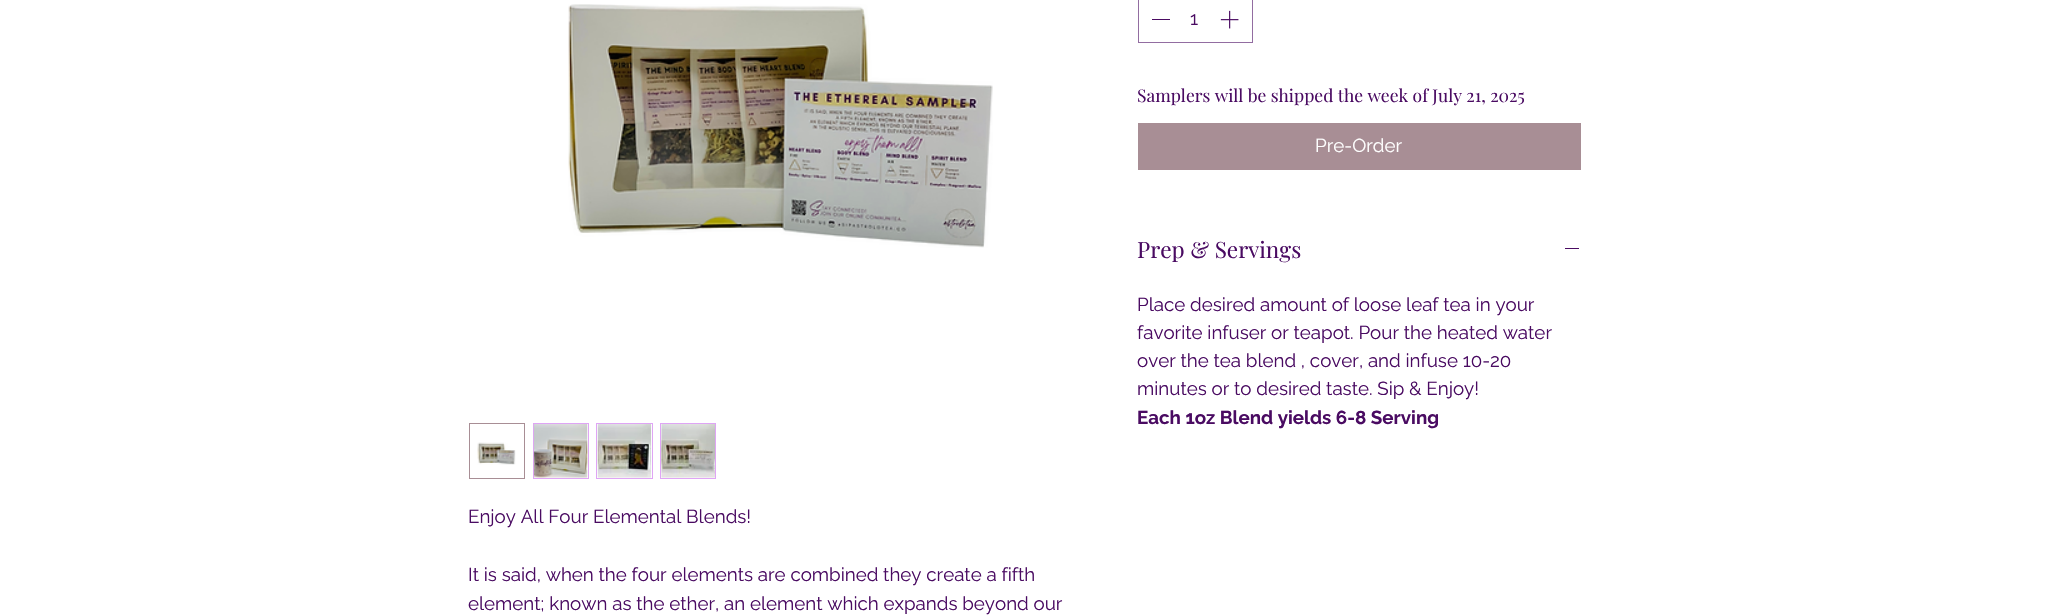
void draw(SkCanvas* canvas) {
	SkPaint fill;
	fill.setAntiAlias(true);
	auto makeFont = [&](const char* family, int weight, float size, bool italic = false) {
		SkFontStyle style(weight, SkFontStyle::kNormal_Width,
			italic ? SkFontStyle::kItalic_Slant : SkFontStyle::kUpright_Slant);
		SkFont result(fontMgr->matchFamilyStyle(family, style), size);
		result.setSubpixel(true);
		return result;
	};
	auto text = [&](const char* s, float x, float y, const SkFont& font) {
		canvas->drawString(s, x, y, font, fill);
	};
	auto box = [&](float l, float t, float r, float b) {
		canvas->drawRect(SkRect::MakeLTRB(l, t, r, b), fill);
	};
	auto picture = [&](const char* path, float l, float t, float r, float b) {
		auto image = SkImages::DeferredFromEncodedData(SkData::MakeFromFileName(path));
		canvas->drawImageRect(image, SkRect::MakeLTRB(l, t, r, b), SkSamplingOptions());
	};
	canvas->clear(0xFFFFFFFF);
	fill.setStyle(SkPaint::kStroke_Style);
	fill.setStrokeWidth(1);
	fill.setColor(0xFF926DA1);
	canvas->drawRect(SkRect::MakeLTRB(1138.5f, -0.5f, 1252.5f, 42.5f), fill);
	fill.setStyle(SkPaint::kFill_Style);
	fill.setColor(0xFF4A0B62);
	box(1152, 19, 1170, 20);
	picture("image0.png", 1220, 10, 1239, 29);
	fill.setColor(0xFFA88E95);
	box(1138, 123, 1581, 170);
	fill.setColor(0xFF4A0B62);
	box(1565, 248, 1579, 249);
	picture("image1.png", 568, 4, 993, 248);
	fill.setStyle(SkPaint::kStroke_Style);
	fill.setColor(0xFFA88E95);
	canvas->drawRect(SkRect::MakeLTRB(469.5f, 423.5f, 524.5f, 478.5f), fill);
	picture("image2.png", 477, 442, 516, 465);
	fill.setColor(0xFFDFA5F5);
	canvas->drawRect(SkRect::MakeLTRB(533.5f, 423.5f, 588.5f, 478.5f), fill);
	picture("image3.png", 533, 424, 588, 478);
	canvas->drawRect(SkRect::MakeLTRB(596.5f, 423.5f, 652.5f, 478.5f), fill);
	picture("image4.png", 597, 424, 652, 478);
	canvas->drawRect(SkRect::MakeLTRB(660.5f, 423.5f, 715.5f, 478.5f), fill);
	picture("image5.png", 661, 424, 715, 478);
	auto font1 = makeFont("Raleway", 400, 18.75f);
	fill.setStyle(SkPaint::kFill_Style);
	fill.setColor(0xFF4A0B62);
	text("1", 1190, 25, font1);
	auto font2 = makeFont("Playfair Display", 400, 17.5f);
	text("Samplers will be shipped the week of July 21, 2025", 1137, 102, font2);
	fill.setColor(0xFFFFFFFF);
	text("Pre-Order", 1315, 152, font1);
	auto font3 = makeFont("Playfair Display", 400, 22.5f);
	fill.setColor(0xFF4A0B62);
	text("Prep & Servings", 1137, 258, font3);
	text("Place desired amount of loose leaf tea in your", 1137, 311, font1);
	text("favorite infuser or teapot. Pour the heated water", 1137, 339, font1);
	text("over the tea blend , cover, and infuse 10-20", 1137, 367, font1);
	text("minutes or to desired taste. Sip & Enjoy!", 1137, 395, font1);
	auto font4 = makeFont("Raleway", 700, 18.75f);
	text("Each 1oz Blend yields 6-8 Serving", 1137, 424, font4);
	text("Enjoy All Four Elemental Blends!", 468, 523, font1);
	text("It is said, when the four elements are combined they create a fifth", 468, 581, font1);
	text("element; known as the ether, an element which expands beyond our", 468, 610, font1);
}
